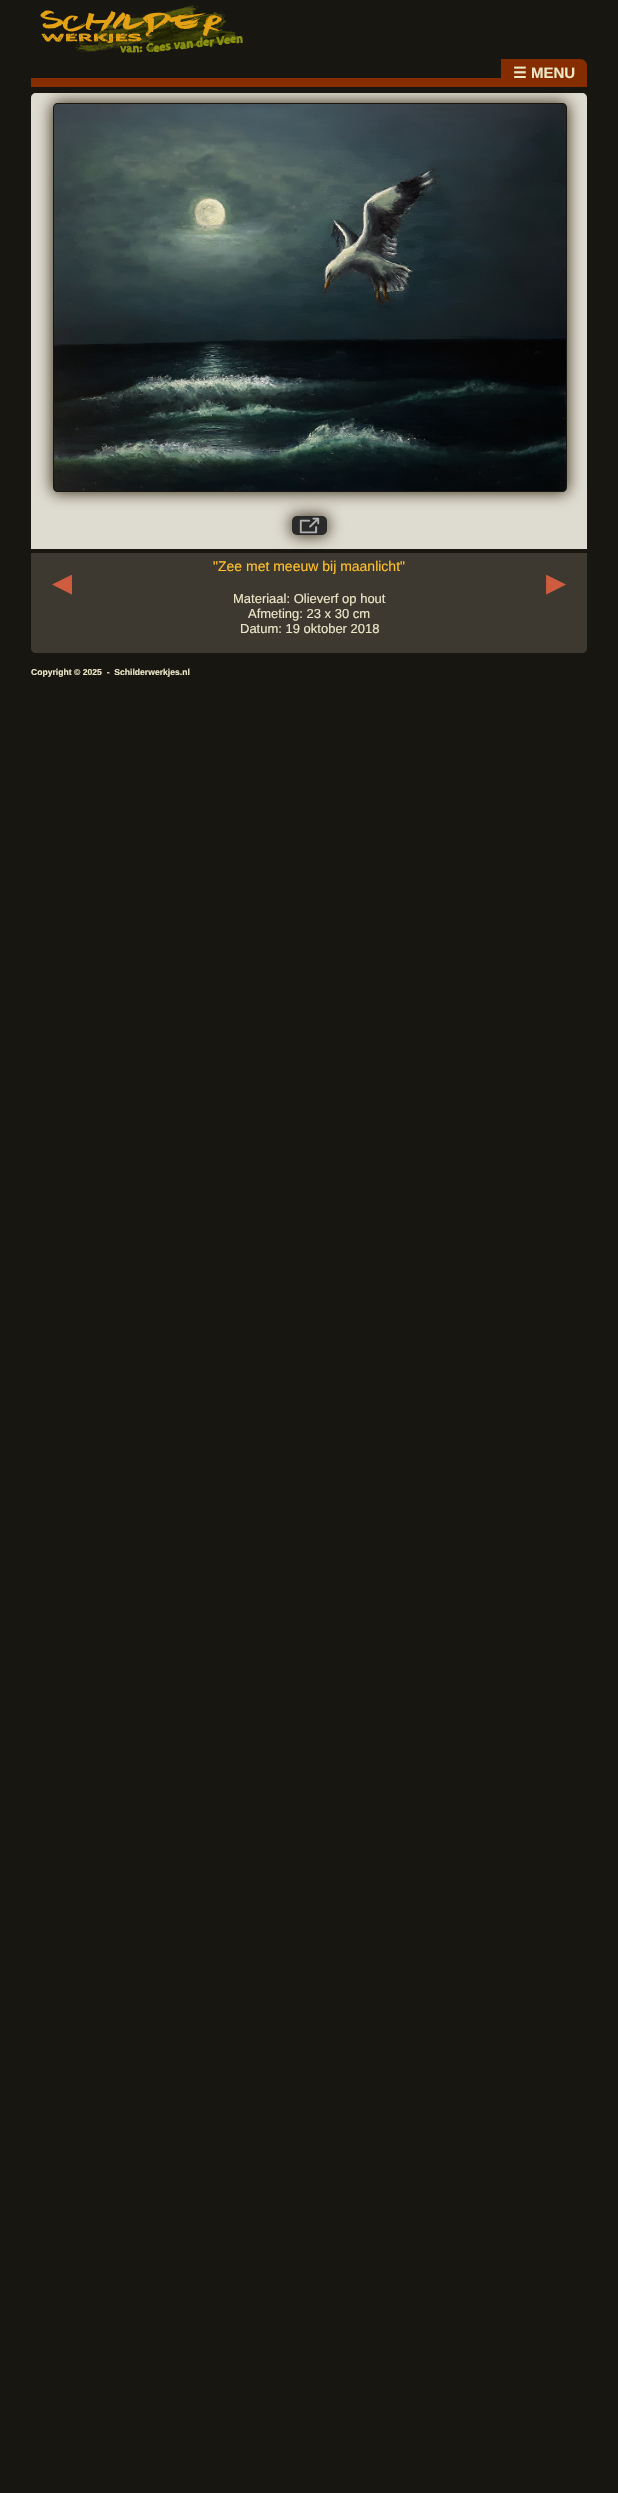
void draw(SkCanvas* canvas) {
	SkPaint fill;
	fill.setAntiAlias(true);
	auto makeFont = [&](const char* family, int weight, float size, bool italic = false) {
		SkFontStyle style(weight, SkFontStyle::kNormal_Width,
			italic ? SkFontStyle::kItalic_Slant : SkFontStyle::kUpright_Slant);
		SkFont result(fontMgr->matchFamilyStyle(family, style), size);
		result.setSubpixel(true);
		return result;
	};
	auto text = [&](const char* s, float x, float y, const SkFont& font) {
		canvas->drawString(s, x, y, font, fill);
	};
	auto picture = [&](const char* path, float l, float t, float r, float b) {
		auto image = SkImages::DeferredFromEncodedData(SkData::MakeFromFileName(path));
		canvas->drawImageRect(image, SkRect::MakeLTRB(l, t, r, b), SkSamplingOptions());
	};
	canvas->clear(0xFF181610);
	picture("image0.png", 40, 5, 243, 53);
	picture("image1.png", 31, 78, 501, 87);
	fill.setColor(0xFF862D00);
	canvas->drawPath(SkPathBuilder().moveTo(501, 59).lineTo(580, 59).cubicTo(584, 59, 587, 62, 587, 66).lineTo(587, 87).lineTo(501, 87).close().detach(), fill);
	fill.setColor(0xFFDEDBD0);
	canvas->drawPath(SkPathBuilder().moveTo(36, 93).lineTo(582, 93).cubicTo(585, 93, 587, 95, 587, 98).lineTo(587, 549).lineTo(31, 549).lineTo(31, 98).cubicTo(31, 95, 33, 93, 36, 93).close().detach(), fill);
	canvas->save();
	canvas->clipPath(SkPathBuilder().moveTo(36, 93).lineTo(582, 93).cubicTo(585, 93, 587, 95, 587, 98).lineTo(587, 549).lineTo(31, 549).lineTo(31, 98).cubicTo(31, 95, 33, 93, 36, 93).close().detach(), true);
	fill.setColor(0xFF3C321C);
	fill.setMaskFilter(SkMaskFilter::MakeBlur(kNormal_SkBlurStyle, 7.5f));
	canvas->drawRoundRect(SkRect::MakeLTRB(52, 102, 568, 493), 6, 6, fill);
	fill.setMaskFilter(nullptr);
	canvas->restore();
	fill.setColor(0xFF181610);
	canvas->drawPath(SkPathBuilder().moveTo(58, 103).lineTo(562, 103).cubicTo(565, 103, 567, 105, 567, 108).lineTo(567, 487).cubicTo(567, 490, 565, 492, 562, 492).lineTo(58, 492).cubicTo(55, 492, 53, 490, 53, 487).lineTo(53, 108).cubicTo(53, 105, 55, 103, 58, 103).close().detach(), fill);
	picture("image2.png", 54, 104, 566, 491);
	canvas->save();
	canvas->clipPath(SkPathBuilder().moveTo(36, 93).lineTo(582, 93).cubicTo(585, 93, 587, 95, 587, 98).lineTo(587, 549).lineTo(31, 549).lineTo(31, 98).cubicTo(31, 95, 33, 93, 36, 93).close().detach(), true);
	fill.setColor(0xFF3C321C);
	fill.setMaskFilter(SkMaskFilter::MakeBlur(kNormal_SkBlurStyle, 7.5f));
	canvas->drawRoundRect(SkRect::MakeLTRB(291, 515, 328, 536), 6, 6, fill);
	fill.setMaskFilter(nullptr);
	canvas->restore();
	picture("image3.png", 292, 516, 327, 535);
	fill.setColor(0xFF3D3931);
	canvas->drawPath(SkPathBuilder().moveTo(31, 553).lineTo(587, 553).lineTo(587, 648).cubicTo(587, 651, 585, 653, 582, 653).lineTo(36, 653).cubicTo(33, 653, 31, 651, 31, 648).close().detach(), fill);
	auto font1 = makeFont("DejaVu Sans", 700, 15);
	fill.setColor(0xFFEDE6C7);
	text("☰", 513, 78, font1);
	auto font2 = makeFont("Liberation Sans", 700, 15);
	text("MENU", 531, 78, font2);
	auto font3 = makeFont("Liberation Sans", 400, 14);
	fill.setColor(0xFFFFC02C);
	text("\"Zee met meeuw bij maanlicht\"", 213, 571, font3);
	auto font4 = makeFont("DejaVu Sans", 400, 40);
	fill.setColor(0xFFCF5C3F);
	text("◂", 52, 595, font4);
	text("▸", 546, 595, font4);
	auto font5 = makeFont("Liberation Sans", 400, 13);
	fill.setColor(0xFFEDE6C7);
	text("Materiaal: Olieverf op hout", 233, 603, font5);
	text("Afmeting: 23 x 30 cm", 248, 618, font5);
	text("Datum: 19 oktober 2018", 240, 633, font5);
	auto font6 = makeFont("Liberation Sans", 700, 8.6f);
	text("Copyright © 2025  -  Schilderwerkjes.nl", 31, 675, font6);
}
